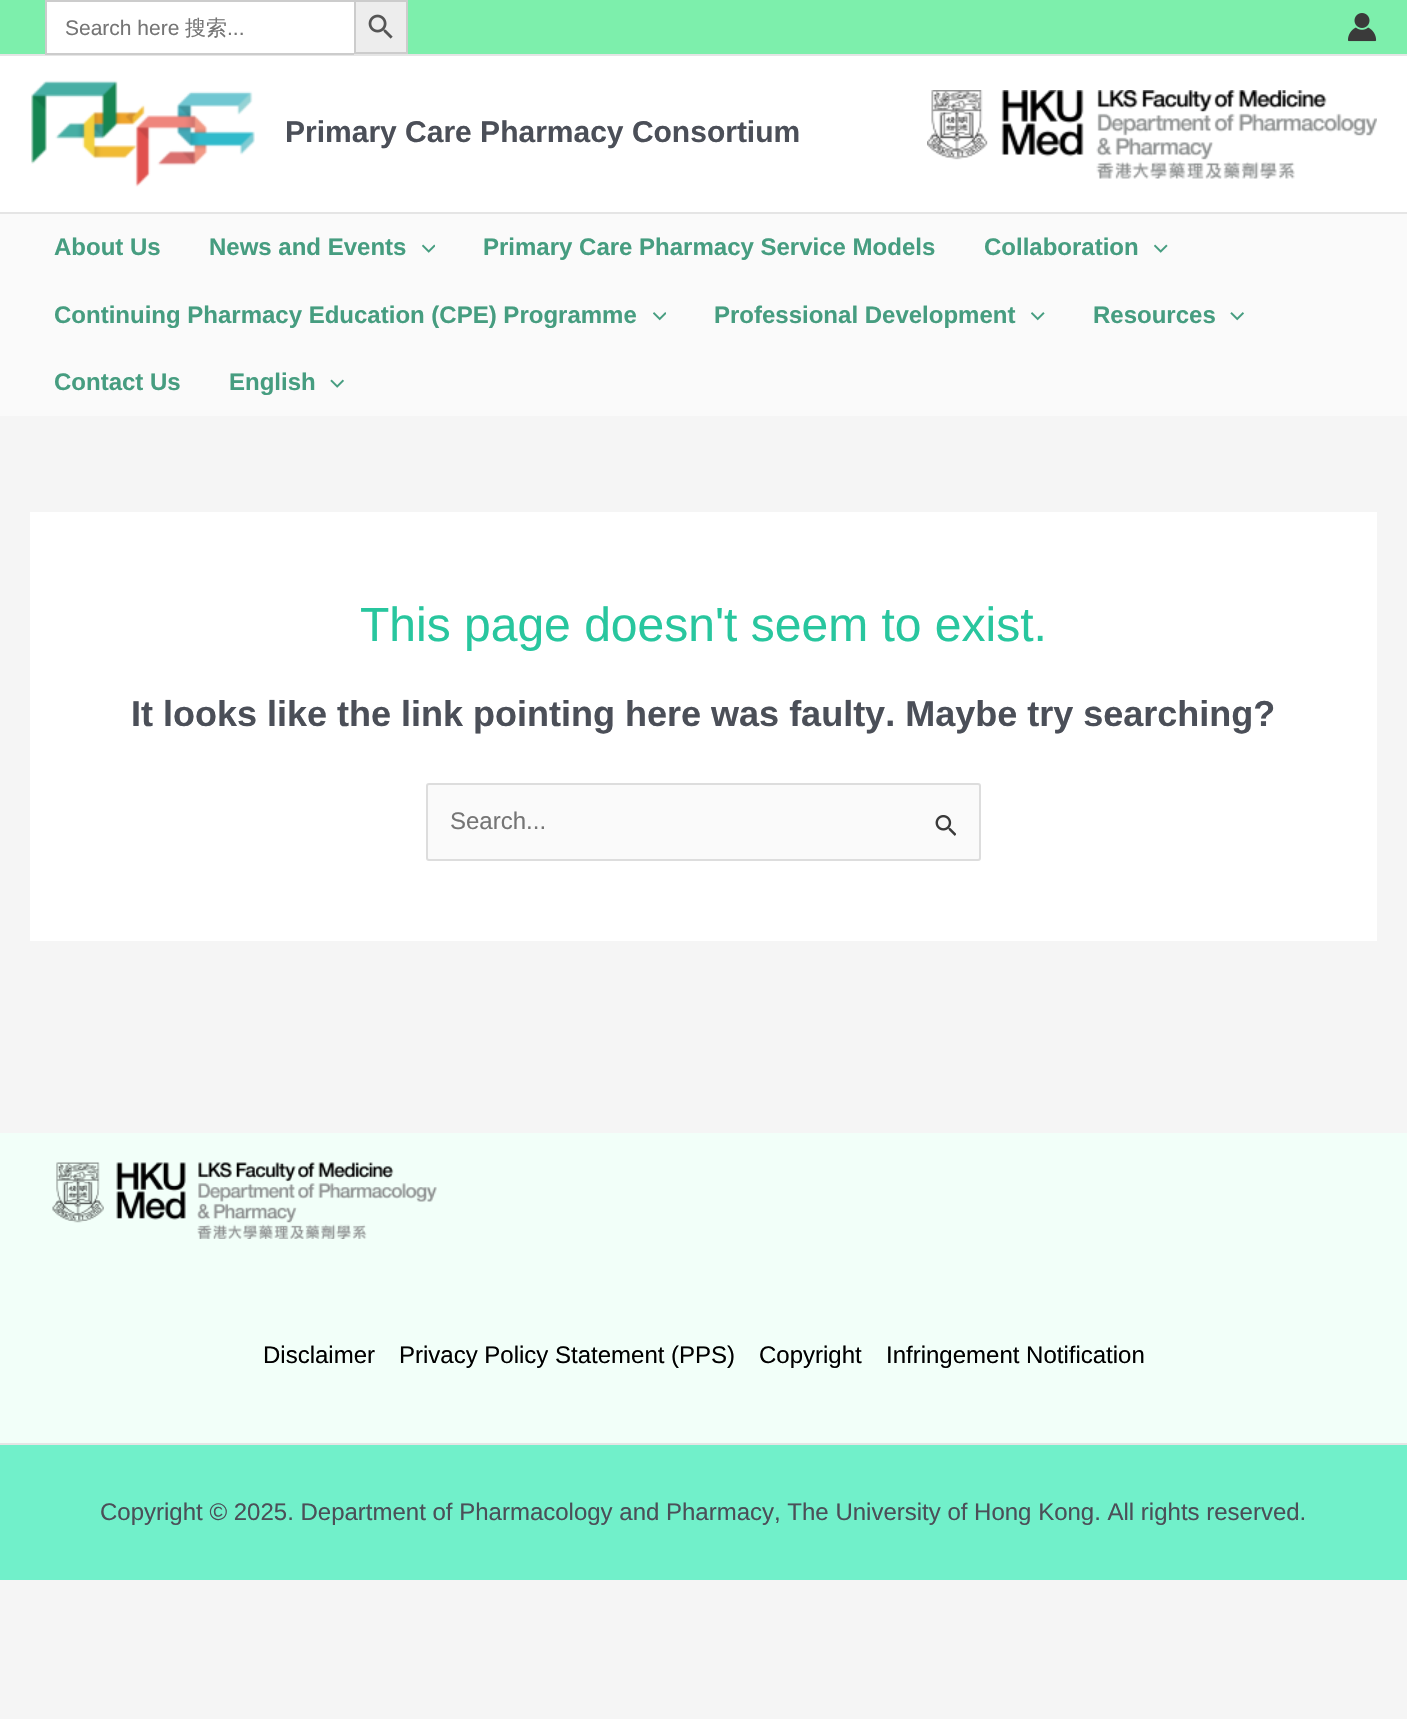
void draw(SkCanvas* canvas) {
	SkPaint fill;
	fill.setAntiAlias(true);
	auto makeFont = [&](const char* family, int weight, float size, bool italic = false) {
		SkFontStyle style(weight, SkFontStyle::kNormal_Width,
			italic ? SkFontStyle::kItalic_Slant : SkFontStyle::kUpright_Slant);
		SkFont result(fontMgr->matchFamilyStyle(family, style), size);
		result.setSubpixel(true);
		return result;
	};
	auto text = [&](const char* s, float x, float y, const SkFont& font) {
		canvas->drawString(s, x, y, font, fill);
	};
	auto box = [&](float l, float t, float r, float b) {
		canvas->drawRect(SkRect::MakeLTRB(l, t, r, b), fill);
	};
	auto picture = [&](const char* path, float l, float t, float r, float b) {
		auto image = SkImages::DeferredFromEncodedData(SkData::MakeFromFileName(path));
		canvas->drawImageRect(image, SkRect::MakeLTRB(l, t, r, b), SkSamplingOptions());
	};
	canvas->clear(0xFFF5F5F5);
	fill.setColor(0xFF7DEFAC);
	box(0, 0, 1407, 54);
	fill.setColor(0xFFE5E5E5);
	box(0, 54, 1407, 56);
	fill.setColor(0xFFFFFFFF);
	box(47, 2, 354, 53);
	fill.setColor(0xFFCCCCCC);
	box(45, 0, 354, 2);
	box(45, 53, 354, 55);
	box(45, 0, 47, 54);
	fill.setColor(0xFFEDEDED);
	canvas->drawRect(SkRect::MakeLTRB(355, 1, 407, 53), fill);
	fill.setStyle(SkPaint::kStroke_Style);
	fill.setStrokeWidth(2);
	fill.setColor(0xFFCCCCCC);
	canvas->drawRect(SkRect::MakeLTRB(355, 1, 407, 53), fill);
	picture("image0.png", 368, 14, 393, 39);
	picture("image1.png", 1348, 13, 1377, 42);
	fill.setStyle(SkPaint::kFill_Style);
	fill.setColor(0xFFFFFFFF);
	box(0, 56, 1407, 212);
	fill.setColor(0xFFE5E5E5);
	box(0, 212, 1407, 214);
	picture("image2.png", 31, 80, 255, 187);
	picture("image3.png", 927, 90, 1377, 179);
	fill.setColor(0xFFFAFAFA);
	box(0, 214, 1407, 416);
	picture("image4.png", 422, 244, 435, 253);
	picture("image5.png", 1154, 244, 1168, 253);
	picture("image6.png", 653, 312, 666, 321);
	picture("image7.png", 1031, 312, 1045, 321);
	picture("image8.png", 1230, 312, 1244, 321);
	picture("image9.png", 330, 379, 344, 388);
	fill.setColor(0xFFFFFFFF);
	box(30, 512, 1377, 941);
	fill.setColor(0xFFFAFAFA);
	canvas->drawRoundRect(SkRect::MakeLTRB(427, 784, 980, 860), 2, 2, fill);
	fill.setStyle(SkPaint::kStroke_Style);
	fill.setColor(0xFFDDDDDD);
	canvas->drawRoundRect(SkRect::MakeLTRB(427, 784, 980, 860), 2, 2, fill);
	picture("image10.png", 935, 815, 956, 836);
	fill.setStyle(SkPaint::kFill_Style);
	fill.setColor(0xFFF2FFF9);
	box(0, 1133, 1407, 1443);
	picture("image11.png", 52, 1162, 437, 1239);
	fill.setColor(0xFF71F0CA);
	box(0, 1445, 1407, 1580);
	fill.setColor(0xFFE5E5E5);
	box(0, 1443, 1407, 1445);
	auto font1 = makeFont("Liberation Sans", 400, 21);
	fill.setColor(0xFF757575);
	text("Search here", 65, 35, font1);
	auto font2 = makeFont("WenQuanYi Zen Hei", 500, 21);
	text("搜索", 185, 35, font2);
	text("...", 227, 35, font1);
	auto font3 = makeFont("Liberation Sans", 700, 30);
	fill.setColor(0xFF4B4F58);
	text("Primary Care Pharmacy Consortium", 285, 142, font3);
	auto font4 = makeFont("Liberation Sans", 700, 24);
	fill.setColor(0xFF469D80);
	text("About Us", 54, 255, font4);
	text("News and Events", 209, 255, font4);
	text("Primary Care Pharmacy Service Models", 483, 255, font4);
	text("Collaboration", 984, 255, font4);
	text("Continuing Pharmacy Education (CPE) Programme", 54, 323, font4);
	text("Professional Development", 714, 323, font4);
	text("Resources", 1093, 323, font4);
	text("Contact Us", 54, 390, font4);
	text("English", 229, 390, font4);
	auto font5 = makeFont("Liberation Sans", 400, 48);
	fill.setColor(0xFF28C69E);
	text("This page doesn't seem to exist.", 360, 641, font5);
	auto font6 = makeFont("Liberation Sans", 700, 36);
	fill.setColor(0xFF4B4F58);
	text("It looks like the link pointing here was faulty. Maybe try searching?", 131, 726, font6);
	auto font7 = makeFont("Liberation Sans", 400, 24);
	fill.setColor(0xFF757575);
	text("Search...", 450, 829, font7);
	fill.setColor(0xFF000000);
	text("Disclaimer", 263, 1363, font7);
	text("Privacy Policy Statement (PPS)", 399, 1363, font7);
	text("Copyright", 759, 1363, font7);
	text("Infringement Notification", 886, 1363, font7);
	fill.setColor(0xFF4B4F58);
	text("Copyright © 2025. Department of Pharmacology and Pharmacy, The University of Hong Kong. All rights reserved.", 100, 1520, font7);
}
